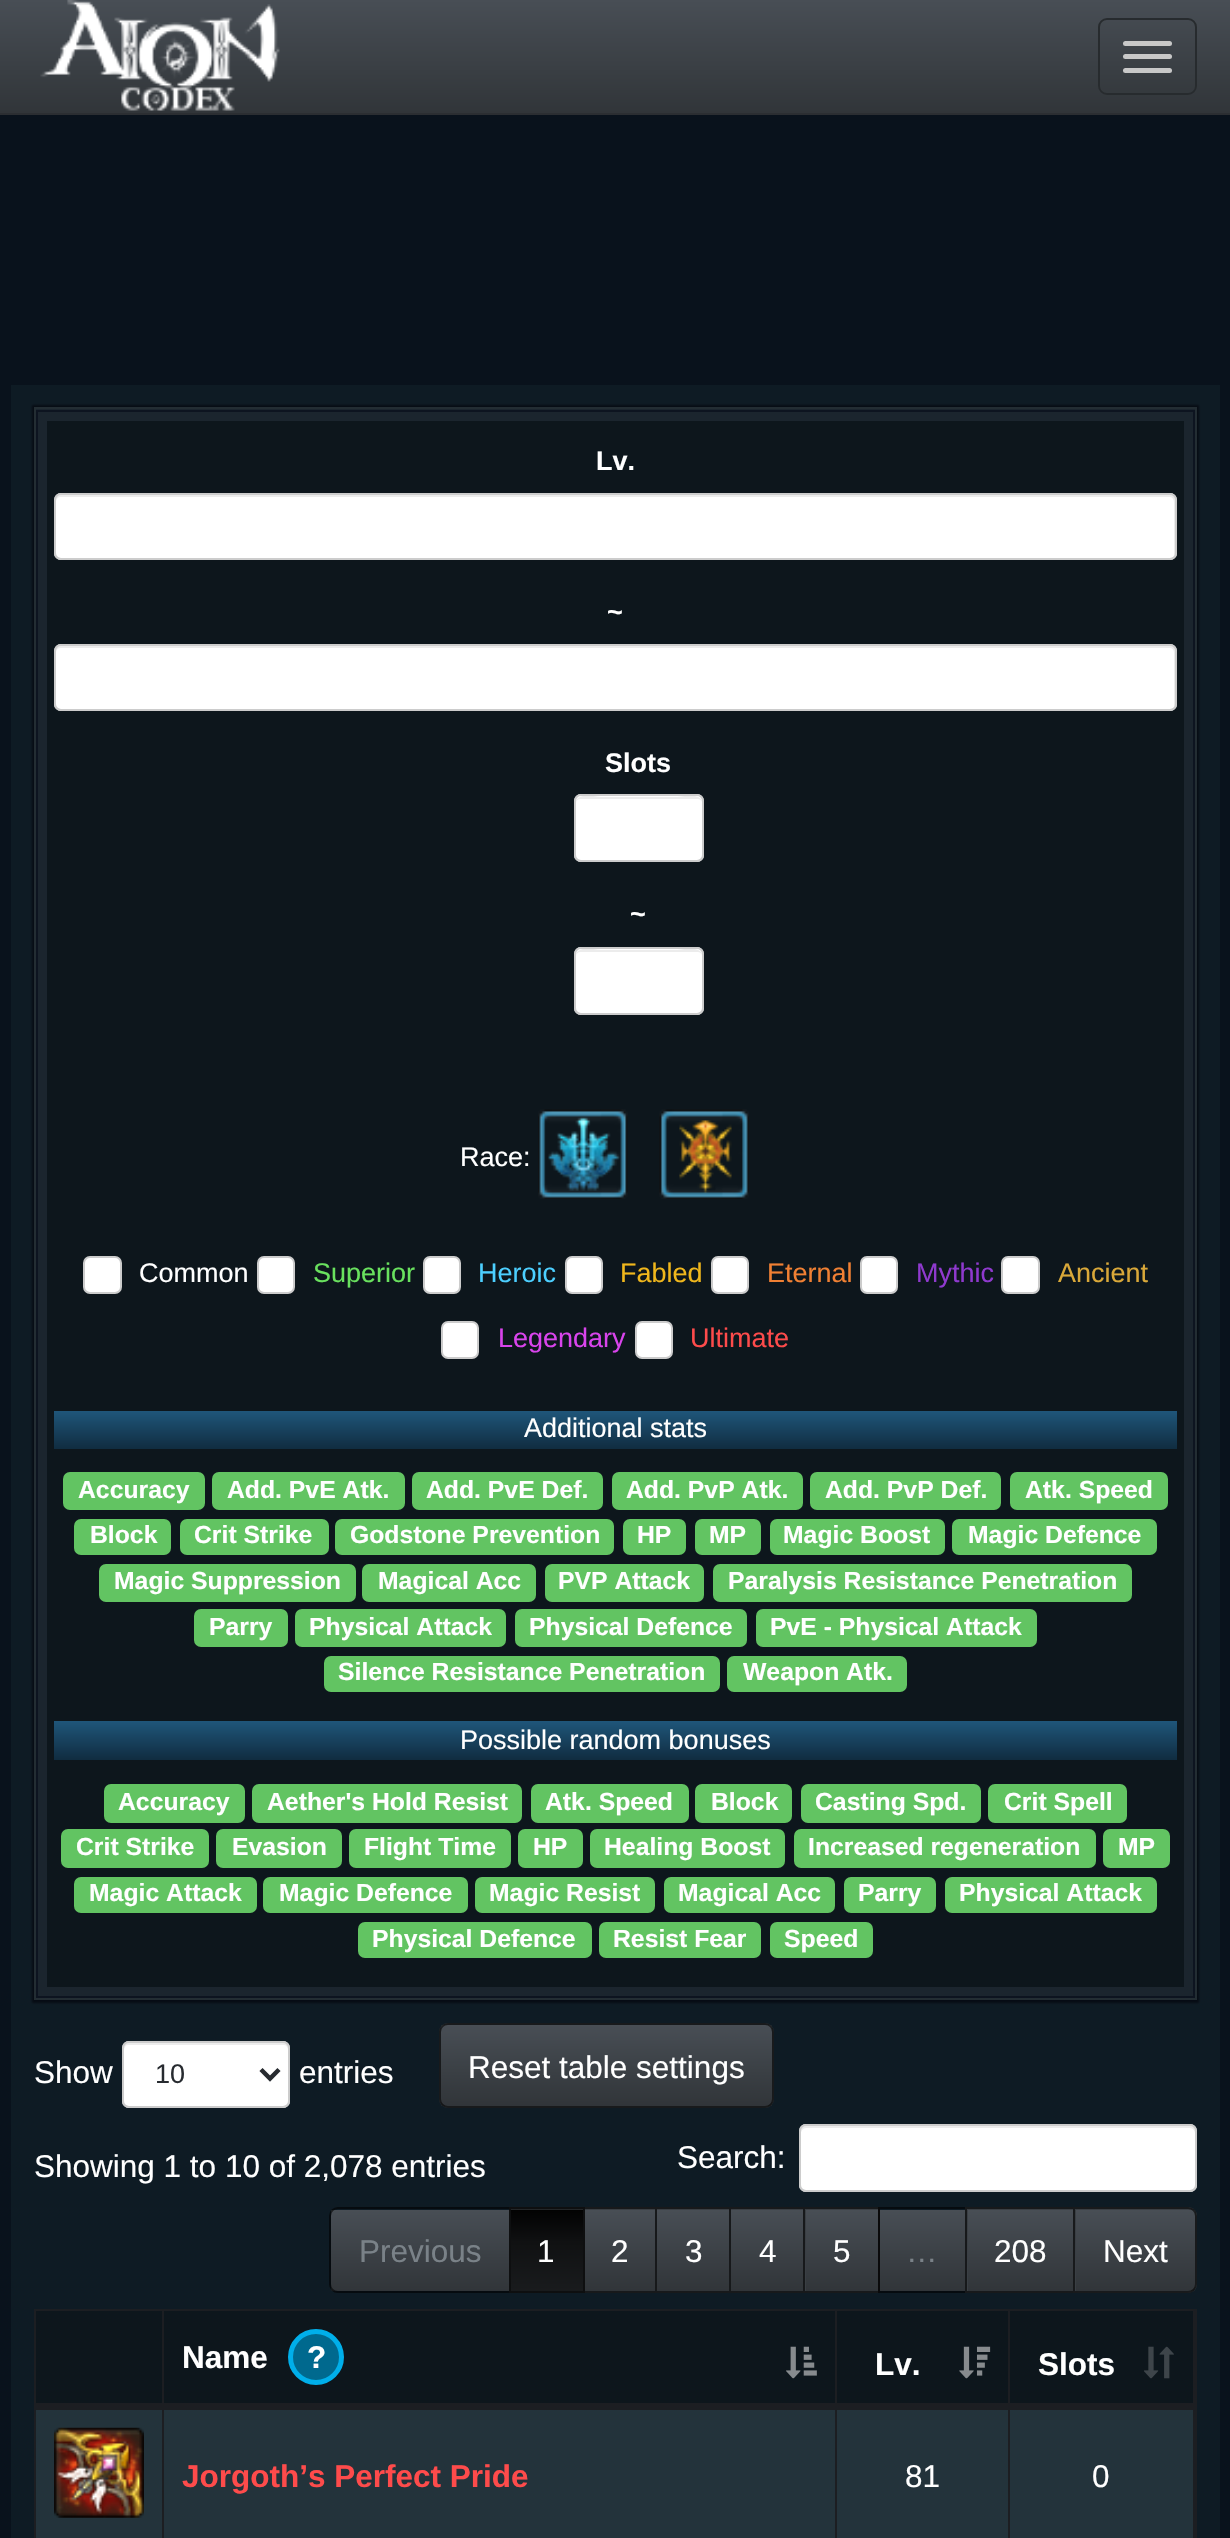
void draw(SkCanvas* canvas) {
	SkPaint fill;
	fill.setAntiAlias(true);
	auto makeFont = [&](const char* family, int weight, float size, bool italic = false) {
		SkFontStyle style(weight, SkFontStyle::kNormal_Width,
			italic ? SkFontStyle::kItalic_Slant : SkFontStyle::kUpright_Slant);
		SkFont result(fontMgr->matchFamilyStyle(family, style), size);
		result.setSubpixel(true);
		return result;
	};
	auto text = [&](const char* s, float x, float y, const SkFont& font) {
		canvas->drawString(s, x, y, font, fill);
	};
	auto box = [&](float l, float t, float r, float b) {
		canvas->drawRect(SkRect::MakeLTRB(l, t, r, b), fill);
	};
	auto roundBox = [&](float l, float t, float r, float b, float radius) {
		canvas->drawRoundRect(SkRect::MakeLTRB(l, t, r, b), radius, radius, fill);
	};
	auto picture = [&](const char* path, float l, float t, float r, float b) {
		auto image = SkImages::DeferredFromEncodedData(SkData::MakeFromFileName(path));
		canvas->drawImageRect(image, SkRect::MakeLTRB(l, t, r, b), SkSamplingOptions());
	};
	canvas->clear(0xFF09121C);
	{
		const SkColor colors[] = {0xFF484E55, 0xFF3A3F44, 0xFF313539};
		const float stops[] = {0, 0.6f, 1};
		const SkPoint ends[] = {{615, 0}, {615, 113}};
		fill.setShader(SkGradientShader::MakeLinear(ends, colors, stops, 3, SkTileMode::kClamp));
		fill.setAlpha(255);
	}
	box(0, 0, 1230, 113);
	fill.setShader(nullptr);
	fill.setColor(0xFF2B2E32);
	box(0, 113, 1230, 115);
	picture("image0.png", 40, 0, 280, 111);
	fill.setStyle(SkPaint::kStroke_Style);
	fill.setStrokeWidth(2);
	fill.setColor(0xFF272B2E);
	canvas->drawRoundRect(SkRect::MakeLTRB(1099, 19, 1196, 94), 8, 8, fill);
	fill.setStyle(SkPaint::kFill_Style);
	fill.setColor(0xFFC8C8C8);
	roundBox(1123, 41, 1172, 46, 2.5f);
	roundBox(1123, 54, 1172, 59, 2.5f);
	roundBox(1123, 68, 1172, 73, 2.5f);
	fill.setColor(0xFF0E1B24);
	box(11, 385, 1220, 2538);
	fill.setColor(0xFF060B14);
	fill.setMaskFilter(SkMaskFilter::MakeBlur(kNormal_SkBlurStyle, 1));
	canvas->drawRect(SkRect::MakeLTRB(32, 405, 1199, 2003), fill);
	fill.setMaskFilter(nullptr);
	fill.setColor(0xFF1B252E);
	box(36, 409, 1195, 1996);
	fill.setStyle(SkPaint::kStroke_Style);
	fill.setColor(0xFF0D1420);
	canvas->drawRect(SkRect::MakeLTRB(37, 411, 1194, 1997), fill);
	fill.setColor(0xFF232D33);
	canvas->drawRect(SkRect::MakeLTRB(35, 408, 1196, 1999), fill);
	fill.setStyle(SkPaint::kFill_Style);
	fill.setColor(0xFF0D161C);
	box(47, 421, 1184, 1987);
	fill.setColor(0xFFFFFFFF);
	roundBox(54, 493, 1177, 560, 7);
	fill.setColor(0xFFECECEC);
	canvas->drawPath(SkPathBuilder().moveTo(61, 497).lineTo(1170, 497).cubicTo(1172, 497, 1174, 499, 1174, 502).lineTo(1174, 556).cubicTo(1175, 555, 1175, 554, 1175, 553).lineTo(1175, 500).cubicTo(1175, 497, 1173, 495, 1170, 495).lineTo(61, 495).cubicTo(58, 495, 56, 497, 56, 500).lineTo(56, 502).cubicTo(56, 499, 58, 497, 61, 497).close().detach(), fill);
	fill.setStyle(SkPaint::kStroke_Style);
	fill.setColor(0xFFCCCCCC);
	canvas->drawRoundRect(SkRect::MakeLTRB(55, 494, 1176, 559), 6, 6, fill);
	fill.setStyle(SkPaint::kFill_Style);
	fill.setColor(0xFFFFFFFF);
	roundBox(54, 644, 1177, 711, 7);
	fill.setColor(0xFFECECEC);
	canvas->drawPath(SkPathBuilder().moveTo(61, 648).lineTo(1170, 648).cubicTo(1172, 648, 1174, 650, 1174, 652).lineTo(1174, 707).cubicTo(1175, 706, 1175, 705, 1175, 704).lineTo(1175, 651).cubicTo(1175, 648, 1173, 646, 1170, 646).lineTo(61, 646).cubicTo(58, 646, 56, 648, 56, 651).lineTo(56, 652).cubicTo(56, 650, 58, 648, 61, 648).close().detach(), fill);
	fill.setStyle(SkPaint::kStroke_Style);
	fill.setColor(0xFFCCCCCC);
	canvas->drawRoundRect(SkRect::MakeLTRB(55, 645, 1176, 710), 6, 6, fill);
	fill.setStyle(SkPaint::kFill_Style);
	fill.setColor(0xFFFFFFFF);
	roundBox(574, 794, 704, 862, 7);
	fill.setColor(0xFFECECEC);
	canvas->drawPath(SkPathBuilder().moveTo(580, 799).lineTo(698, 799).cubicTo(700, 799, 702, 801, 702, 803).cubicTo(702, 792, 682, 797, 678, 797).lineTo(600, 797).cubicTo(596, 797, 576, 792, 576, 803).cubicTo(576, 801, 578, 799, 580, 799).close().detach(), fill);
	fill.setStyle(SkPaint::kStroke_Style);
	fill.setColor(0xFFCCCCCC);
	canvas->drawRoundRect(SkRect::MakeLTRB(575, 795, 703, 861), 6, 6, fill);
	fill.setStyle(SkPaint::kFill_Style);
	fill.setColor(0xFFFFFFFF);
	roundBox(574, 947, 704, 1015, 7);
	fill.setColor(0xFFECECEC);
	canvas->drawPath(SkPathBuilder().moveTo(580, 952).lineTo(698, 952).cubicTo(700, 952, 702, 954, 702, 956).cubicTo(702, 945, 682, 950, 678, 950).lineTo(600, 950).cubicTo(596, 950, 576, 945, 576, 956).cubicTo(576, 954, 578, 952, 580, 952).close().detach(), fill);
	fill.setStyle(SkPaint::kStroke_Style);
	fill.setColor(0xFFCCCCCC);
	canvas->drawRoundRect(SkRect::MakeLTRB(575, 948, 703, 1014), 6, 6, fill);
	picture("image1.png", 538, 1109, 628, 1199);
	picture("image2.png", 659, 1109, 749, 1199);
	fill.setStyle(SkPaint::kFill_Style);
	fill.setColor(0xFFFFFFFF);
	canvas->drawRoundRect(SkRect::MakeLTRB(84, 1257, 121, 1293), 6, 6, fill);
	fill.setStyle(SkPaint::kStroke_Style);
	fill.setColor(0xFFCCCCCC);
	canvas->drawRoundRect(SkRect::MakeLTRB(84, 1257, 121, 1293), 6, 6, fill);
	fill.setStyle(SkPaint::kFill_Style);
	fill.setColor(0xFFFFFFFF);
	canvas->drawRoundRect(SkRect::MakeLTRB(258, 1257, 294, 1293), 6, 6, fill);
	fill.setStyle(SkPaint::kStroke_Style);
	fill.setColor(0xFFCCCCCC);
	canvas->drawRoundRect(SkRect::MakeLTRB(258, 1257, 294, 1293), 6, 6, fill);
	fill.setStyle(SkPaint::kFill_Style);
	fill.setColor(0xFFFFFFFF);
	canvas->drawRoundRect(SkRect::MakeLTRB(424, 1257, 460, 1293), 6, 6, fill);
	fill.setStyle(SkPaint::kStroke_Style);
	fill.setColor(0xFFCCCCCC);
	canvas->drawRoundRect(SkRect::MakeLTRB(424, 1257, 460, 1293), 6, 6, fill);
	fill.setStyle(SkPaint::kFill_Style);
	fill.setColor(0xFFFFFFFF);
	canvas->drawRoundRect(SkRect::MakeLTRB(566, 1257, 602, 1293), 6, 6, fill);
	fill.setStyle(SkPaint::kStroke_Style);
	fill.setColor(0xFFCCCCCC);
	canvas->drawRoundRect(SkRect::MakeLTRB(566, 1257, 602, 1293), 6, 6, fill);
	fill.setStyle(SkPaint::kFill_Style);
	fill.setColor(0xFFFFFFFF);
	canvas->drawRoundRect(SkRect::MakeLTRB(712, 1257, 748, 1293), 6, 6, fill);
	fill.setStyle(SkPaint::kStroke_Style);
	fill.setColor(0xFFCCCCCC);
	canvas->drawRoundRect(SkRect::MakeLTRB(712, 1257, 748, 1293), 6, 6, fill);
	fill.setStyle(SkPaint::kFill_Style);
	fill.setColor(0xFFFFFFFF);
	canvas->drawRoundRect(SkRect::MakeLTRB(861, 1257, 897, 1293), 6, 6, fill);
	fill.setStyle(SkPaint::kStroke_Style);
	fill.setColor(0xFFCCCCCC);
	canvas->drawRoundRect(SkRect::MakeLTRB(861, 1257, 897, 1293), 6, 6, fill);
	fill.setStyle(SkPaint::kFill_Style);
	fill.setColor(0xFFFFFFFF);
	canvas->drawRoundRect(SkRect::MakeLTRB(1002, 1257, 1039, 1293), 6, 6, fill);
	fill.setStyle(SkPaint::kStroke_Style);
	fill.setColor(0xFFCCCCCC);
	canvas->drawRoundRect(SkRect::MakeLTRB(1002, 1257, 1039, 1293), 6, 6, fill);
	fill.setStyle(SkPaint::kFill_Style);
	fill.setColor(0xFFFFFFFF);
	canvas->drawRoundRect(SkRect::MakeLTRB(442, 1322, 478, 1358), 6, 6, fill);
	fill.setStyle(SkPaint::kStroke_Style);
	fill.setColor(0xFFCCCCCC);
	canvas->drawRoundRect(SkRect::MakeLTRB(442, 1322, 478, 1358), 6, 6, fill);
	fill.setStyle(SkPaint::kFill_Style);
	fill.setColor(0xFFFFFFFF);
	canvas->drawRoundRect(SkRect::MakeLTRB(636, 1322, 672, 1358), 6, 6, fill);
	fill.setStyle(SkPaint::kStroke_Style);
	fill.setColor(0xFFCCCCCC);
	canvas->drawRoundRect(SkRect::MakeLTRB(636, 1322, 672, 1358), 6, 6, fill);
	fill.setStyle(SkPaint::kFill_Style);
	{
		const SkColor colors[] = {0xFF1F567A, 0xFF102C40};
		const float stops[] = {0, 1};
		const SkPoint ends[] = {{615, 1411}, {615, 1449}};
		fill.setShader(SkGradientShader::MakeLinear(ends, colors, stops, 2, SkTileMode::kClamp));
		fill.setAlpha(255);
	}
	box(54, 1411, 1177, 1449);
	fill.setShader(nullptr);
	fill.setColor(0xFF62C462);
	roundBox(63, 1472, 205, 1510, 7);
	roundBox(212, 1472, 405, 1510, 7);
	roundBox(412, 1472, 603, 1510, 7);
	roundBox(612, 1472, 803, 1510, 7);
	roundBox(810, 1472, 1001, 1510, 7);
	roundBox(1010, 1472, 1168, 1510, 7);
	roundBox(74, 1519, 171, 1555, 7);
	roundBox(180, 1519, 329, 1555, 7);
	roundBox(335, 1519, 614, 1555, 7);
	roundBox(623, 1519, 686, 1555, 7);
	roundBox(695, 1519, 761, 1555, 7);
	roundBox(770, 1519, 945, 1555, 7);
	roundBox(952, 1519, 1157, 1555, 7);
	roundBox(99, 1564, 356, 1602, 7);
	roundBox(362, 1564, 536, 1602, 7);
	roundBox(545, 1564, 704, 1602, 7);
	roundBox(713, 1564, 1132, 1602, 7);
	roundBox(194, 1609, 288, 1647, 7);
	roundBox(295, 1609, 506, 1647, 7);
	roundBox(515, 1609, 747, 1647, 7);
	roundBox(756, 1609, 1037, 1647, 7);
	roundBox(324, 1656, 720, 1692, 7);
	roundBox(727, 1656, 907, 1692, 7);
	{
		const SkColor colors[] = {0xFF1F567A, 0xFF102C40};
		const float stops[] = {0, 1};
		const SkPoint ends[] = {{615, 1721}, {615, 1760}};
		fill.setShader(SkGradientShader::MakeLinear(ends, colors, stops, 2, SkTileMode::kClamp));
		fill.setAlpha(255);
	}
	box(54, 1721, 1177, 1760);
	fill.setShader(nullptr);
	fill.setColor(0xFF62C462);
	roundBox(104, 1784, 245, 1823, 7);
	roundBox(252, 1784, 522, 1823, 7);
	roundBox(531, 1784, 689, 1823, 7);
	roundBox(695, 1784, 792, 1823, 7);
	roundBox(801, 1784, 981, 1823, 7);
	roundBox(988, 1784, 1127, 1823, 7);
	roundBox(61, 1829, 209, 1868, 7);
	roundBox(216, 1829, 342, 1868, 7);
	roundBox(349, 1829, 511, 1868, 7);
	roundBox(518, 1829, 583, 1868, 7);
	roundBox(590, 1829, 785, 1868, 7);
	roundBox(794, 1829, 1096, 1868, 7);
	roundBox(1103, 1829, 1170, 1868, 7);
	roundBox(74, 1877, 257, 1913, 7);
	roundBox(263, 1877, 468, 1913, 7);
	roundBox(475, 1877, 655, 1913, 7);
	roundBox(664, 1877, 835, 1913, 7);
	roundBox(844, 1877, 936, 1913, 7);
	roundBox(945, 1877, 1157, 1913, 7);
	roundBox(358, 1922, 592, 1958, 7);
	roundBox(599, 1922, 761, 1958, 7);
	roundBox(770, 1922, 873, 1958, 7);
	fill.setColor(0xFFFFFFFF);
	roundBox(122, 2041, 290, 2108, 7);
	fill.setColor(0xFFECECEC);
	canvas->drawPath(SkPathBuilder().moveTo(128, 2045).lineTo(284, 2045).cubicTo(286, 2045, 288, 2047, 288, 2050).lineTo(288, 2048).cubicTo(288, 2045, 286, 2043, 283, 2043).lineTo(129, 2043).cubicTo(126, 2043, 124, 2045, 124, 2048).lineTo(124, 2050).cubicTo(124, 2047, 126, 2045, 128, 2045).close().detach(), fill);
	fill.setStyle(SkPaint::kStroke_Style);
	fill.setColor(0xFFCCCCCC);
	canvas->drawRoundRect(SkRect::MakeLTRB(123, 2042, 289, 2107), 6, 6, fill);
	fill.setStrokeWidth(4.5f);
	fill.setColor(0xFF272B30);
	canvas->drawPath(SkPathBuilder().moveTo(261, 2069.5f).lineTo(270, 2078.5f).lineTo(279, 2069.5f).detach(), fill);
	fill.setStyle(SkPaint::kFill_Style);
	fill.setColor(0xFF3A3F44);
	roundBox(439, 2023, 774, 2108, 9);
	canvas->save();
	canvas->clipPath(SkPathBuilder().moveTo(448, 2023).lineTo(765, 2023).cubicTo(770, 2023, 774, 2027, 774, 2032).lineTo(774, 2099).cubicTo(774, 2104, 770, 2108, 765, 2108).lineTo(448, 2108).cubicTo(443, 2108, 439, 2104, 439, 2099).lineTo(439, 2032).cubicTo(439, 2027, 443, 2023, 448, 2023).close().detach(), true);
	{
		const SkColor colors[] = {0xFF484E55, 0xFF3A3F44, 0xFF313539};
		const float stops[] = {0, 0.6f, 1};
		const SkPoint ends[] = {{606, 2025}, {606, 2106}};
		fill.setShader(SkGradientShader::MakeLinear(ends, colors, stops, 3, SkTileMode::kClamp));
		fill.setAlpha(255);
	}
	box(441, 2025, 772, 2106);
	canvas->restore();
	fill.setStyle(SkPaint::kStroke_Style);
	fill.setStrokeWidth(2);
	fill.setShader(nullptr);
	fill.setColor(0x99000000);
	canvas->drawRoundRect(SkRect::MakeLTRB(440, 2024, 773, 2107), 8, 8, fill);
	fill.setStyle(SkPaint::kFill_Style);
	fill.setColor(0xFFFFFFFF);
	roundBox(799, 2124, 1197, 2192, 7);
	fill.setColor(0xFFECECEC);
	canvas->drawPath(SkPathBuilder().moveTo(806, 2128).lineTo(1190, 2128).cubicTo(1193, 2128, 1195, 2131, 1195, 2133).lineTo(1195, 2131).cubicTo(1195, 2128, 1193, 2126, 1190, 2126).lineTo(806, 2126).cubicTo(803, 2126, 801, 2128, 801, 2131).lineTo(801, 2133).cubicTo(801, 2131, 803, 2128, 806, 2128).close().detach(), fill);
	fill.setStyle(SkPaint::kStroke_Style);
	fill.setColor(0xFFCCCCCC);
	canvas->drawRoundRect(SkRect::MakeLTRB(800, 2125, 1196, 2191), 6, 6, fill);
	canvas->save();
	canvas->clipPath(SkPathBuilder().moveTo(338, 2207).lineTo(511, 2207).lineTo(511, 2293).lineTo(338, 2293).cubicTo(333, 2293, 329, 2289, 329, 2284).lineTo(329, 2216).cubicTo(329, 2211, 333, 2207, 338, 2207).close().detach(), true);
	fill.setStyle(SkPaint::kFill_Style);
	{
		const SkColor colors[] = {0xFF484E55, 0xFF3A3F44, 0xFF313539};
		const float stops[] = {0, 0.6f, 1};
		const SkPoint ends[] = {{420, 2210}, {420, 2291}};
		fill.setShader(SkGradientShader::MakeLinear(ends, colors, stops, 3, SkTileMode::kClamp));
		fill.setAlpha(255);
	}
	box(331, 2210, 509, 2291);
	canvas->restore();
	fill.setStyle(SkPaint::kStroke_Style);
	fill.setShader(nullptr);
	fill.setColor(0x99000000);
	canvas->drawPath(SkPathBuilder().moveTo(338, 2208).lineTo(510, 2208).lineTo(510, 2292).lineTo(338, 2292).cubicTo(333.5f, 2292, 330, 2288.5f, 330, 2284).lineTo(330, 2216).cubicTo(330, 2211.5f, 333.5f, 2208, 338, 2208).close().detach(), fill);
	fill.setStyle(SkPaint::kFill_Style);
	fill.setColor(0xFF232628);
	box(511, 2209, 583, 2210);
	{
		const SkColor colors[] = {0xFF020202, 0xFF101112, 0xFF191B1D};
		const float stops[] = {0, 0.4f, 1};
		const SkPoint ends[] = {{547, 2210}, {547, 2291}};
		fill.setShader(SkGradientShader::MakeLinear(ends, colors, stops, 3, SkTileMode::kClamp));
		fill.setAlpha(255);
	}
	box(511, 2210, 583, 2291);
	fill.setShader(nullptr);
	fill.setColor(0xFF3A3F44);
	box(585, 2209, 655, 2210);
	{
		const SkColor colors[] = {0xFF484E55, 0xFF3A3F44, 0xFF313539};
		const float stops[] = {0, 0.6f, 1};
		const SkPoint ends[] = {{620, 2210}, {620, 2291}};
		fill.setShader(SkGradientShader::MakeLinear(ends, colors, stops, 3, SkTileMode::kClamp));
		fill.setAlpha(255);
	}
	box(585, 2210, 655, 2291);
	fill.setStyle(SkPaint::kStroke_Style);
	fill.setShader(nullptr);
	fill.setColor(0xFF17191B);
	canvas->drawRect(SkRect::MakeLTRB(584, 2208, 656, 2292), fill);
	fill.setColor(0xFF0E0F10);
	canvas->drawRect(SkRect::MakeLTRB(510, 2208, 584, 2292), fill);
	fill.setStyle(SkPaint::kFill_Style);
	fill.setColor(0xFF3A3F44);
	box(657, 2209, 729, 2210);
	{
		const SkColor colors[] = {0xFF484E55, 0xFF3A3F44, 0xFF313539};
		const float stops[] = {0, 0.6f, 1};
		const SkPoint ends[] = {{693, 2210}, {693, 2291}};
		fill.setShader(SkGradientShader::MakeLinear(ends, colors, stops, 3, SkTileMode::kClamp));
		fill.setAlpha(255);
	}
	box(657, 2210, 729, 2291);
	fill.setStyle(SkPaint::kStroke_Style);
	fill.setShader(nullptr);
	fill.setColor(0xFF17191B);
	canvas->drawRect(SkRect::MakeLTRB(656, 2208, 730, 2292), fill);
	fill.setStyle(SkPaint::kFill_Style);
	fill.setColor(0xFF3A3F44);
	box(731, 2209, 803, 2210);
	{
		const SkColor colors[] = {0xFF484E55, 0xFF3A3F44, 0xFF313539};
		const float stops[] = {0, 0.6f, 1};
		const SkPoint ends[] = {{767, 2210}, {767, 2291}};
		fill.setShader(SkGradientShader::MakeLinear(ends, colors, stops, 3, SkTileMode::kClamp));
		fill.setAlpha(255);
	}
	box(731, 2210, 803, 2291);
	fill.setStyle(SkPaint::kStroke_Style);
	fill.setShader(nullptr);
	fill.setColor(0xFF17191B);
	canvas->drawRect(SkRect::MakeLTRB(730, 2208, 805, 2292), fill);
	fill.setStyle(SkPaint::kFill_Style);
	fill.setColor(0xFF3A3F44);
	box(805, 2209, 878, 2291);
	{
		const SkColor colors[] = {0xFF484E55, 0xFF3A3F44, 0xFF313539};
		const float stops[] = {0, 0.6f, 1};
		const SkPoint ends[] = {{842, 2210}, {842, 2291}};
		fill.setShader(SkGradientShader::MakeLinear(ends, colors, stops, 3, SkTileMode::kClamp));
		fill.setAlpha(255);
	}
	box(806, 2210, 878, 2291);
	fill.setStyle(SkPaint::kStroke_Style);
	fill.setShader(nullptr);
	fill.setColor(0xFF17191B);
	canvas->drawRect(SkRect::MakeLTRB(804, 2208, 879, 2292), fill);
	fill.setStyle(SkPaint::kFill_Style);
	{
		const SkColor colors[] = {0xFF484E55, 0xFF3A3F44, 0xFF313539};
		const float stops[] = {0, 0.6f, 1};
		const SkPoint ends[] = {{923, 2210}, {923, 2291}};
		fill.setShader(SkGradientShader::MakeLinear(ends, colors, stops, 3, SkTileMode::kClamp));
		fill.setAlpha(255);
	}
	box(880, 2210, 965, 2291);
	fill.setStyle(SkPaint::kStroke_Style);
	fill.setShader(nullptr);
	fill.setColor(0x99000000);
	canvas->drawRect(SkRect::MakeLTRB(879, 2208, 967, 2292), fill);
	fill.setStyle(SkPaint::kFill_Style);
	fill.setColor(0xFF3A3F44);
	box(967, 2209, 1073, 2291);
	{
		const SkColor colors[] = {0xFF484E55, 0xFF3A3F44, 0xFF313539};
		const float stops[] = {0, 0.6f, 1};
		const SkPoint ends[] = {{1020, 2210}, {1020, 2291}};
		fill.setShader(SkGradientShader::MakeLinear(ends, colors, stops, 3, SkTileMode::kClamp));
		fill.setAlpha(255);
	}
	box(968, 2210, 1073, 2291);
	fill.setStyle(SkPaint::kStroke_Style);
	fill.setShader(nullptr);
	fill.setColor(0xFF17191B);
	canvas->drawRect(SkRect::MakeLTRB(966, 2208, 1075, 2292), fill);
	fill.setStyle(SkPaint::kFill_Style);
	fill.setColor(0xFF3A3F44);
	canvas->drawPath(SkPathBuilder().moveTo(1073, 2207).lineTo(1188, 2207).cubicTo(1193, 2207, 1197, 2211, 1197, 2216).lineTo(1197, 2284).cubicTo(1197, 2289, 1193, 2293, 1188, 2293).lineTo(1073, 2293).close().detach(), fill);
	canvas->save();
	canvas->clipPath(SkPathBuilder().moveTo(1073, 2207).lineTo(1188, 2207).cubicTo(1193, 2207, 1197, 2211, 1197, 2216).lineTo(1197, 2284).cubicTo(1197, 2289, 1193, 2293, 1188, 2293).lineTo(1073, 2293).close().detach(), true);
	{
		const SkColor colors[] = {0xFF484E55, 0xFF3A3F44, 0xFF313539};
		const float stops[] = {0, 0.6f, 1};
		const SkPoint ends[] = {{1135, 2210}, {1135, 2291}};
		fill.setShader(SkGradientShader::MakeLinear(ends, colors, stops, 3, SkTileMode::kClamp));
		fill.setAlpha(255);
	}
	box(1076, 2210, 1195, 2291);
	canvas->restore();
	fill.setStyle(SkPaint::kStroke_Style);
	fill.setShader(nullptr);
	fill.setColor(0x99000000);
	canvas->drawPath(SkPathBuilder().moveTo(1074, 2208).lineTo(1188, 2208).cubicTo(1192.5f, 2208, 1196, 2211.5f, 1196, 2216).lineTo(1196, 2284).cubicTo(1196, 2288.5f, 1192.5f, 2292, 1188, 2292).lineTo(1074, 2292).close().detach(), fill);
	fill.setStyle(SkPaint::kFill_Style);
	fill.setColor(0xFF0D161C);
	box(36, 2311, 1193, 2403);
	fill.setStyle(SkPaint::kStroke_Style);
	fill.setColor(0xFF1C1E22);
	canvas->drawRect(SkRect::MakeLTRB(35, 2310, 1196, 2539), fill);
	fill.setStyle(SkPaint::kFill_Style);
	box(162, 2311, 164, 2408);
	box(36, 2403, 164, 2410);
	fill.setColor(0xFF23333B);
	box(36, 2410, 1193, 2538);
	fill.setColor(0xFF1C1E22);
	box(164, 2408, 1195, 2410);
	box(835, 2311, 837, 2538);
	box(1008, 2311, 1010, 2538);
	box(1193, 2311, 1195, 2538);
	box(164, 2403, 1195, 2408);
	fill.setColor(0xFF00698E);
	canvas->drawCircle(316, 2357, 25.5f, fill);
	fill.setStyle(SkPaint::kStroke_Style);
	fill.setStrokeWidth(5);
	fill.setColor(0xFF00AFEA);
	canvas->drawCircle(316, 2357, 25.5f, fill);
	picture("image3.png", 786, 2346, 817, 2379);
	picture("image4.png", 959, 2346, 991, 2379);
	picture("image5.png", 1144, 2346, 1174, 2379);
	fill.setStyle(SkPaint::kFill_Style);
	fill.setColor(0xFF1C1E22);
	box(162, 2408, 164, 2538);
	picture("image6.png", 54, 2427, 144, 2518);
	auto font1 = makeFont("Liberation Sans", 700, 27);
	fill.setColor(0xFFFFFFFF);
	text("Lv.", 596, 470, font1);
	text("~", 607, 621, font1);
	text("Slots", 605, 772, font1);
	text("~", 630, 923, font1);
	auto font2 = makeFont("Liberation Sans", 400, 27);
	text("Race:", 460, 1166, font2);
	text("Common", 139, 1282, font2);
	fill.setColor(0xFF69E15E);
	text("Superior", 313, 1282, font2);
	fill.setColor(0xFF4CCFFF);
	text("Heroic", 478, 1282, font2);
	fill.setColor(0xFFF0B71C);
	text("Fabled", 620, 1282, font2);
	fill.setColor(0xFFF08033);
	text("Eternal", 767, 1282, font2);
	fill.setColor(0xFF8F39CE);
	text("Mythic", 916, 1282, font2);
	fill.setColor(0xFFD9A839);
	text("Ancient", 1058, 1282, font2);
	fill.setColor(0xFFD944EC);
	text("Legendary", 498, 1347, font2);
	fill.setColor(0xFFFE4B4B);
	text("Ultimate", 690, 1347, font2);
	fill.setColor(0xFFFFFFFF);
	text("Additional stats", 524, 1437, font2);
	auto font3 = makeFont("Liberation Sans", 700, 24.75f);
	text("Accuracy", 78, 1498, font3);
	text("Add. PvE Atk.", 227, 1498, font3);
	text("Add. PvE Def.", 426, 1498, font3);
	text("Add. PvP Atk.", 626, 1498, font3);
	text("Add. PvP Def.", 825, 1498, font3);
	text("Atk. Speed", 1025, 1498, font3);
	text("Block", 90, 1543, font3);
	text("Crit Strike", 194, 1543, font3);
	text("Godstone Prevention", 350, 1543, font3);
	text("HP", 637, 1543, font3);
	text("MP", 709, 1543, font3);
	text("Magic Boost", 783, 1543, font3);
	text("Magic Defence", 968, 1543, font3);
	text("Magic Suppression", 114, 1589, font3);
	text("Magical Acc", 378, 1589, font3);
	text("PVP Attack", 558, 1589, font3);
	text("Paralysis Resistance Penetration", 728, 1589, font3);
	text("Parry", 209, 1635, font3);
	text("Physical Attack", 309, 1635, font3);
	text("Physical Defence", 529, 1635, font3);
	text("PvE - Physical Attack", 770, 1635, font3);
	text("Silence Resistance Penetration", 338, 1680, font3);
	text("Weapon Atk.", 743, 1680, font3);
	text("Possible random bonuses", 460, 1749, font2);
	text("Accuracy", 118, 1810, font3);
	text("Aether's Hold Resist", 267, 1810, font3);
	text("Atk. Speed", 545, 1810, font3);
	text("Block", 711, 1810, font3);
	text("Casting Spd.", 815, 1810, font3);
	text("Crit Spell", 1004, 1810, font3);
	text("Crit Strike", 76, 1855, font3);
	text("Evasion", 232, 1855, font3);
	text("Flight Time", 364, 1855, font3);
	text("HP", 533, 1855, font3);
	text("Healing Boost", 604, 1855, font3);
	text("Increased regeneration", 808, 1855, font3);
	text("MP", 1118, 1855, font3);
	text("Magic Attack", 89, 1901, font3);
	text("Magic Defence", 279, 1901, font3);
	text("Magic Resist", 489, 1901, font3);
	text("Magical Acc", 678, 1901, font3);
	text("Parry", 858, 1901, font3);
	text("Physical Attack", 959, 1901, font3);
	text("Physical Defence", 372, 1947, font3);
	text("Resist Fear", 613, 1947, font3);
	text("Speed", 784, 1947, font3);
	auto font4 = makeFont("Liberation Sans", 400, 31.5f);
	text("Show", 34, 2083, font4);
	fill.setColor(0xFF272B30);
	text("10", 155, 2083, font2);
	fill.setColor(0xFFFFFFFF);
	text("entries", 299, 2083, font4);
	text("Reset table settings", 468, 2078, font4);
	text("Search:", 677, 2168, font4);
	text("Showing 1 to 10 of 2,078 entries", 34, 2177, font4);
	fill.setColor(0xFF7A8288);
	text("Previous", 359, 2262, font4);
	fill.setColor(0xFFFFFFFF);
	text("1", 537, 2262, font4);
	text("2", 611, 2262, font4);
	text("3", 685, 2262, font4);
	text("4", 759, 2262, font4);
	text("5", 833, 2262, font4);
	fill.setColor(0xFF7A8288);
	text("…", 906, 2262, font4);
	fill.setColor(0xFFFFFFFF);
	text("208", 994, 2262, font4);
	text("Next", 1103, 2262, font4);
	auto font5 = makeFont("Liberation Sans", 700, 31.5f);
	text("Name", 182, 2368, font5);
	text("?", 307, 2368, font5);
	text("Lv.", 875, 2375, font5);
	text("Slots", 1038, 2375, font5);
	fill.setColor(0xFFFE4B4B);
	text("Jorgoth’s Perfect Pride", 182, 2487, font5);
	fill.setColor(0xFFFFFFFF);
	text("81", 905, 2487, font4);
	text("0", 1092, 2487, font4);
}
